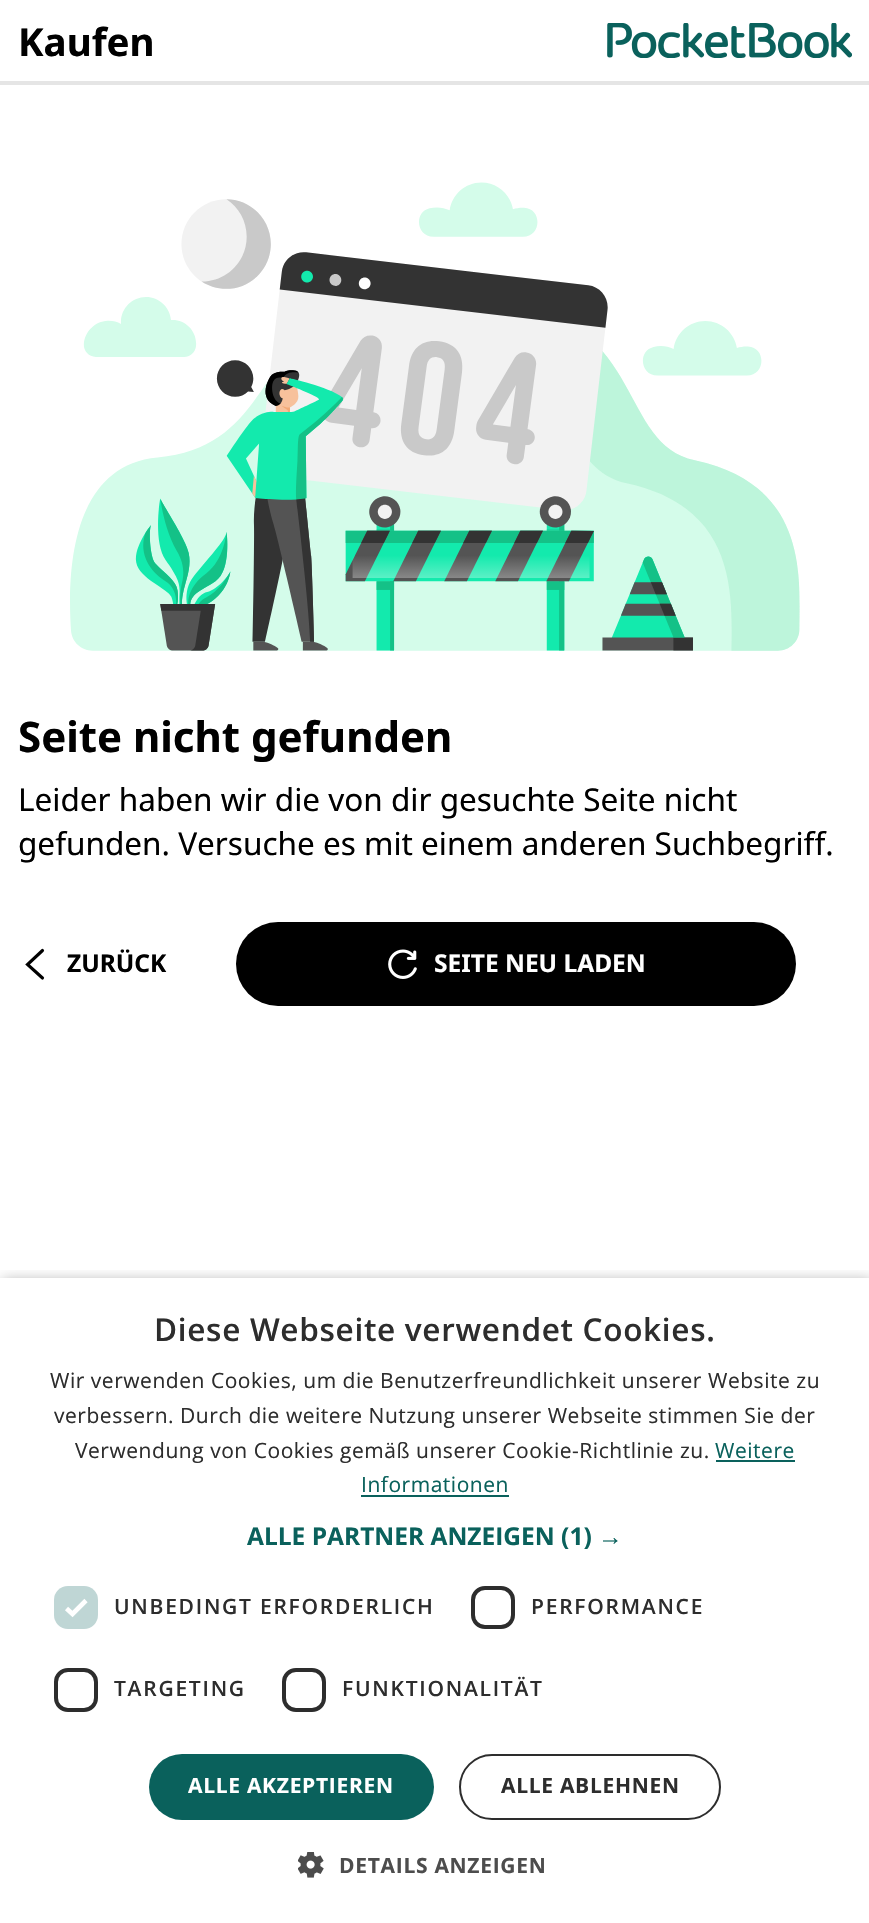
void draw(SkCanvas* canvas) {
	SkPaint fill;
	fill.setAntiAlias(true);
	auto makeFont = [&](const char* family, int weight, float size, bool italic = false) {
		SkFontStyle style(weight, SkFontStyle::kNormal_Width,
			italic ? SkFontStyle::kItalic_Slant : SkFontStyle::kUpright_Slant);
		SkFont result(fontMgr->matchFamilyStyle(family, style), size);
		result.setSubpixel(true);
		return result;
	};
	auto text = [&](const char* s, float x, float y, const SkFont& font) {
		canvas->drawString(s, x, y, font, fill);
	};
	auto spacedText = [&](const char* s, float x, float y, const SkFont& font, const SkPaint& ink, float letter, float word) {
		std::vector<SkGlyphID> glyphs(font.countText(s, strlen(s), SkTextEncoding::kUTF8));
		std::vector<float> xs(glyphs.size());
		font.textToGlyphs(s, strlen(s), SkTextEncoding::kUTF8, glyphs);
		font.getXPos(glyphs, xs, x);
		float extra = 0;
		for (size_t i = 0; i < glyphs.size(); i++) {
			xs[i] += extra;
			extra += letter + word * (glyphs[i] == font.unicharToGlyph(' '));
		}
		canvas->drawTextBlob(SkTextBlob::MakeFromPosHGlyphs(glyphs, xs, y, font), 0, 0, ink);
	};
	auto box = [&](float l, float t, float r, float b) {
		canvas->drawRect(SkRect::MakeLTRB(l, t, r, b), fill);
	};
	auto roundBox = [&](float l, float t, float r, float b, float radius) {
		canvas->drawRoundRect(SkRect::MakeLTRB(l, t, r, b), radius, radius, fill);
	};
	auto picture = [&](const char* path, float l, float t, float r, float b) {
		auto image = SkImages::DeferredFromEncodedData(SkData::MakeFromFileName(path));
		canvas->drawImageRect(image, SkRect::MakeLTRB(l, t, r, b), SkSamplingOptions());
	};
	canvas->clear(0xFFFFFFFF);
	fill.setColor(0xFFE5E5E5);
	box(0, 81, 869, 85);
	picture("image0.png", 607, 23, 852, 58);
	picture("image1.png", 70, 182, 800, 651);
	fill.setStyle(SkPaint::kStroke_Style);
	fill.setStrokeWidth(3.1f);
	fill.setStrokeCap(SkPaint::kRound_Cap);
	fill.setColor(0xFF000000);
	canvas->drawPath(SkPathBuilder().moveTo(42.5f, 978).lineTo(27.5f, 964.5f).lineTo(42.5f, 950.5f).detach(), fill);
	fill.setStyle(SkPaint::kFill_Style);
	roundBox(236, 922, 796, 1006, 42);
	picture("image2.png", 388, 949, 417, 979);
	canvas->save();
	canvas->clipRect(SkRect::MakeLTRB(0, 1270, 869, 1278));
	fill.setColor(0x59000000);
	fill.setMaskFilter(SkMaskFilter::MakeBlur(kNormal_SkBlurStyle, 7));
	canvas->drawRect(SkRect::MakeLTRB(2, 1281, 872, 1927), fill);
	fill.setMaskFilter(nullptr);
	canvas->restore();
	fill.setColor(0xFF0A615C);
	box(716, 1460, 795, 1462);
	box(361, 1495, 509, 1497);
	fill.setColor(0xFFBFD6D5);
	roundBox(54, 1586, 98, 1629, 14);
	fill.setStyle(SkPaint::kStroke_Style);
	fill.setStrokeWidth(4.6f);
	fill.setStrokeCap(SkPaint::kButt_Cap);
	fill.setColor(0xFFFFFFFF);
	canvas->drawPath(SkPathBuilder().moveTo(66.5f, 1608.5f).lineTo(72.5f, 1614).lineTo(86, 1600.5f).detach(), fill);
	fill.setStrokeWidth(4);
	fill.setColor(0xFF2D2D2D);
	canvas->drawRoundRect(SkRect::MakeLTRB(473, 1588, 513, 1627), 12, 12, fill);
	canvas->drawRoundRect(SkRect::MakeLTRB(56, 1670, 96, 1710), 12, 12, fill);
	canvas->drawRoundRect(SkRect::MakeLTRB(284, 1670, 324, 1710), 12, 12, fill);
	fill.setStyle(SkPaint::kFill_Style);
	fill.setColor(0xFF0A615C);
	roundBox(149, 1754, 434, 1820, 33);
	fill.setStyle(SkPaint::kStroke_Style);
	fill.setStrokeWidth(2);
	fill.setColor(0xFF2D2D2D);
	canvas->drawRoundRect(SkRect::MakeLTRB(460, 1755, 720, 1819), 32, 32, fill);
	picture("image3.png", 298, 1852, 324, 1878);
	auto font1 = makeFont("Noto Sans", 700, 38.5f);
	fill.setStyle(SkPaint::kFill_Style);
	fill.setColor(0xFF000000);
	text("Kaufen", 18, 56, font1);
	auto font2 = makeFont("Noto Sans", 700, 42);
	text("Seite nicht gefunden", 18, 752, font2);
	auto font3 = makeFont("Noto Sans", 400, 31.5f);
	text("Leider haben wir die von dir gesuchte Seite nicht", 18, 811, font3);
	text("gefunden. Versuche es mit einem anderen Suchbegriff.", 18, 855, font3);
	auto font4 = makeFont("Noto Sans", 700, 24.5f);
	text("ZURÜCK", 67, 972, font4);
	fill.setColor(0xFFFFFFFF);
	text("SEITE NEU LADEN", 434, 972, font4);
	auto font5 = makeFont("Open Sans", 600, 31.5f);
	fill.setColor(0xFF2D2D2D);
	spacedText("Diese Webseite verwendet Cookies.", 154, 1341, font5, fill, 0.7f, 0);
	auto font6 = makeFont("Open Sans", 400, 21);
	spacedText("Wir verwenden Cookies, um die Benutzerfreundlichkeit unserer Website zu", 50, 1388, font6, fill, 0.53f, 0);
	spacedText("verbessern. Durch die weitere Nutzung unserer Webseite stimmen Sie der", 54, 1423, font6, fill, 0.53f, 0);
	spacedText("Verwendung von Cookies gemäß unserer Cookie-Richtlinie zu.", 75, 1458, font6, fill, 0.53f, 0);
	fill.setColor(0xFF0A615C);
	spacedText("Weitere", 715, 1458, font6, fill, 0.53f, 0);
	spacedText("Informationen", 361, 1492, font6, fill, 0.53f, 0);
	auto font7 = makeFont("Open Sans", 700, 24.5f);
	text("ALLE PARTNER ANZEIGEN (1)", 247, 1545, font7);
	auto font8 = makeFont("Liberation Sans", 700, 24.5f);
	text("→", 598, 1545, font8);
	auto font9 = makeFont("Open Sans", 600, 21);
	fill.setColor(0xFF2D2D2D);
	spacedText("UNBEDINGT ERFORDERLICH", 114, 1614, font9, fill, 1.75f, 0);
	spacedText("PERFORMANCE", 531, 1614, font9, fill, 1.75f, 0);
	spacedText("TARGETING", 114, 1696, font9, fill, 1.75f, 0);
	spacedText("FUNKTIONALITÄT", 342, 1696, font9, fill, 1.75f, 0);
	auto font10 = makeFont("Open Sans", 700, 21);
	fill.setColor(0xFFFFFFFF);
	spacedText("ALLE AKZEPTIEREN", 188, 1793, font10, fill, 0.7f, 0);
	fill.setColor(0xFF2D2D2D);
	spacedText("ALLE ABLEHNEN", 501, 1793, font10, fill, 0.7f, 0);
	fill.setColor(0xFF4D4D4D);
	spacedText("DETAILS ANZEIGEN", 339, 1873, font10, fill, 0.7f, 0);
}
